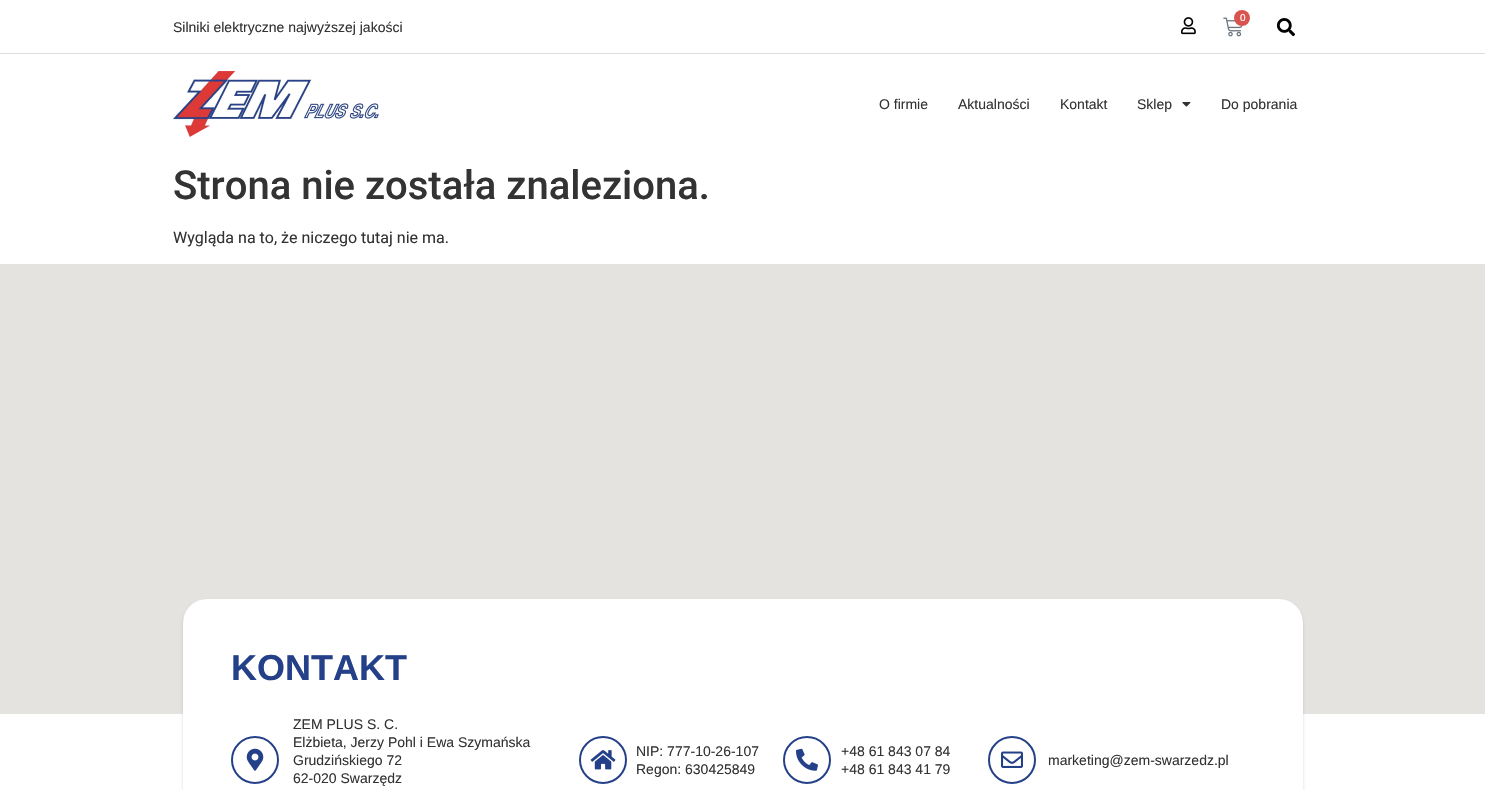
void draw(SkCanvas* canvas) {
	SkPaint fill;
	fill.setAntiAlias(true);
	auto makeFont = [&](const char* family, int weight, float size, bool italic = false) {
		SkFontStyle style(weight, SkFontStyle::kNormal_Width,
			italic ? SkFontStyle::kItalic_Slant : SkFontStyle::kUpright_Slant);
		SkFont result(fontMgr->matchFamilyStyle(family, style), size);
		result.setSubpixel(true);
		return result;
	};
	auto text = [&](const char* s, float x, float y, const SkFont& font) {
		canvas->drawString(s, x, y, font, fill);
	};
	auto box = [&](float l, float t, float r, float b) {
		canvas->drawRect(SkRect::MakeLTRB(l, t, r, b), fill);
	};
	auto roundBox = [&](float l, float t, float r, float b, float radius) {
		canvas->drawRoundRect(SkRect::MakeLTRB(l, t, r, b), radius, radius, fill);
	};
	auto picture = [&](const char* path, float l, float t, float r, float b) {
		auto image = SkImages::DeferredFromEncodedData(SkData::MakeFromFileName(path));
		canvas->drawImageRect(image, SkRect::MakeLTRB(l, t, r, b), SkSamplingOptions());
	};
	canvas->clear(0xFFFFFFFF);
	fill.setColor(0xFFDDDDDD);
	box(0, 53, 1485, 54);
	picture("image0.png", 1181, 17, 1196, 35);
	picture("image1.png", 1223, 17, 1243, 37);
	fill.setColor(0xFFD9534F);
	canvas->drawCircle(1242, 18, 8, fill);
	picture("image2.png", 1276, 18, 1295, 37);
	picture("image3.png", 173, 71, 379, 137);
	picture("image4.png", 1182, 102, 1191, 107);
	fill.setColor(0xFFE5E3DF);
	box(0, 264, 1485, 714);
	fill.setColor(0x26000000);
	fill.setMaskFilter(SkMaskFilter::MakeBlur(kNormal_SkBlurStyle, 1.5f));
	canvas->drawRoundRect(SkRect::MakeLTRB(183, 601, 1303, 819), 24, 24, fill);
	fill.setMaskFilter(nullptr);
	fill.setColor(0xFFFFFFFF);
	roundBox(183, 599, 1303, 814, 24);
	fill.setStyle(SkPaint::kStroke_Style);
	fill.setStrokeWidth(2);
	fill.setColor(0xFF244088);
	canvas->drawCircle(255, 760, 23, fill);
	picture("image5.png", 246, 748, 264, 771);
	canvas->drawCircle(603, 760, 23, fill);
	picture("image6.png", 590, 750, 616, 770);
	canvas->drawCircle(807, 760, 23, fill);
	picture("image7.png", 796, 748, 818, 771);
	canvas->drawCircle(1012, 760, 23, fill);
	picture("image8.png", 1001, 751, 1023, 768);
	auto font1 = makeFont("Liberation Sans", 400, 10);
	fill.setStyle(SkPaint::kFill_Style);
	fill.setColor(0xFFFFFFFF);
	text("0", 1240, 21, font1);
	auto font2 = makeFont("Liberation Sans", 400, 14);
	fill.setColor(0xFF333333);
	text("Silniki elektryczne najwyższej jakości", 173, 32, font2);
	text("O firmie", 879, 109, font2);
	text("Aktualności", 958, 109, font2);
	text("Kontakt", 1060, 109, font2);
	text("Sklep", 1137, 109, font2);
	text("Do pobrania", 1221, 109, font2);
	auto font3 = makeFont("Roboto", 500, 40);
	text("Strona nie została znaleziona.", 173, 199, font3);
	auto font4 = makeFont("Roboto", 400, 16);
	text("Wygląda na to, że niczego tutaj nie ma.", 173, 243, font4);
	auto font5 = makeFont("Liberation Sans", 700, 36);
	fill.setColor(0xFF244088);
	text("KONTAKT", 231, 680, font5);
	fill.setColor(0xFF333333);
	text("ZEM PLUS S. C.", 293, 729, font2);
	text("Elżbieta, Jerzy Pohl i Ewa Szymańska", 293, 747, font2);
	text("Grudzińskiego 72", 293, 765, font2);
	text("62-020 Swarzędz", 293, 783, font2);
	text("NIP: 777-10-26-107", 636, 756, font2);
	text("Regon: 630425849", 636, 774, font2);
	text("+48 61 843 07 84", 841, 756, font2);
	text("+48 61 843 41 79", 841, 774, font2);
	text("marketing@zem-swarzedz.pl", 1048, 765, font2);
}
